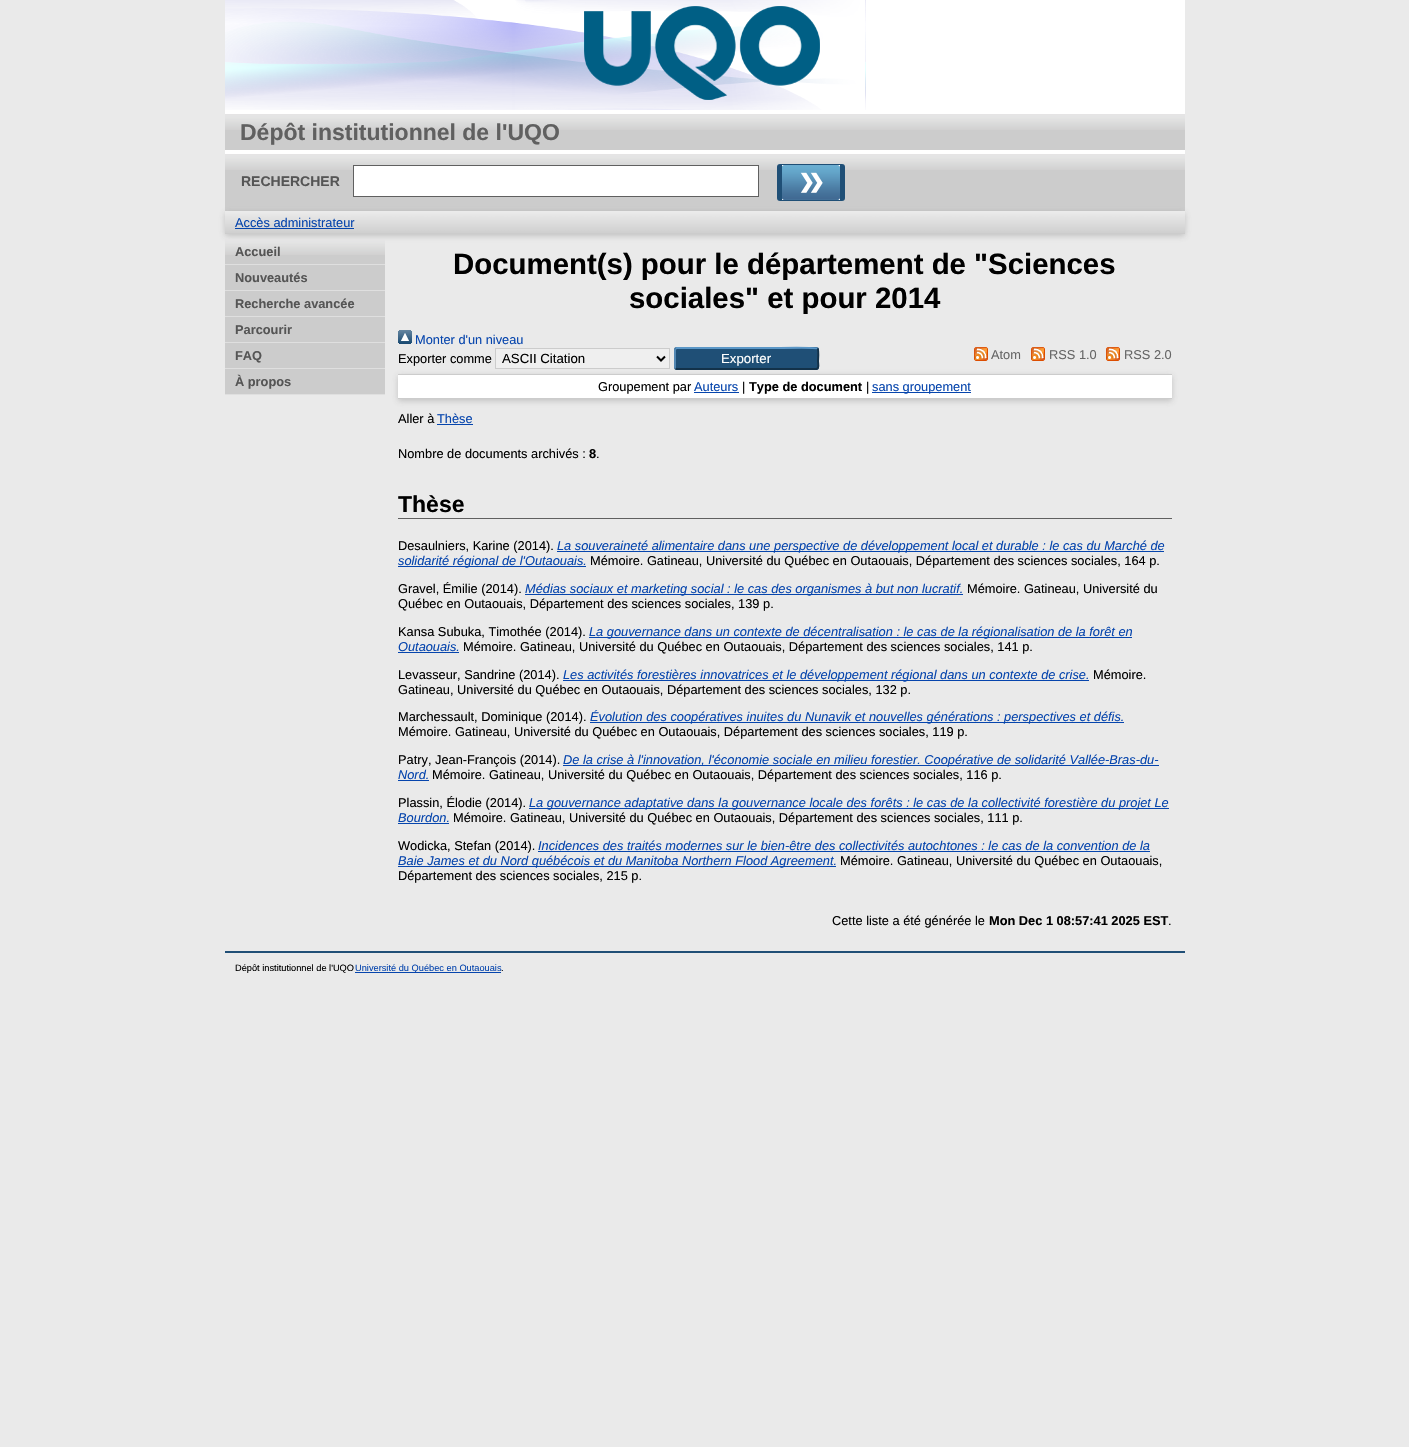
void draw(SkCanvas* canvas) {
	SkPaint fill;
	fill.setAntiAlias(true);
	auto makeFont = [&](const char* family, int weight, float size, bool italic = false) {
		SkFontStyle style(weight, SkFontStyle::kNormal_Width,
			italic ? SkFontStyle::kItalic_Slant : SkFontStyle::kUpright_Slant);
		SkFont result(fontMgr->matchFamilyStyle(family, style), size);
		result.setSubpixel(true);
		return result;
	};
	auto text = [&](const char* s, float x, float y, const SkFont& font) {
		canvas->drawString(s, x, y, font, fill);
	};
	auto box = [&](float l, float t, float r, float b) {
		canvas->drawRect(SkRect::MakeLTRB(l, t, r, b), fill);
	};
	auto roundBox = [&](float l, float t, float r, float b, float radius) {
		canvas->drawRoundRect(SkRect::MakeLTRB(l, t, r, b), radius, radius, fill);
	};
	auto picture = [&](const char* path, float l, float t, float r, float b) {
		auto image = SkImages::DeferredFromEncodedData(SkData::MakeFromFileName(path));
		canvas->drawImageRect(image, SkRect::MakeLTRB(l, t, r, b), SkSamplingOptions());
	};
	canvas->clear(0xFFEAEAEA);
	fill.setColor(0xFFFFFFFF);
	box(225, 0, 1185, 114);
	picture("image0.png", 225, 0, 866, 110);
	picture("image1.png", 584, 6, 820, 100);
	fill.setColor(0xFFCCCCCC);
	box(225, 130, 1185, 150);
	picture("image2.png", 225, 114, 1185, 130);
	box(225, 170, 1185, 211);
	picture("image2.png", 225, 154, 1185, 170);
	fill.setColor(0xFFFFFFFF);
	box(225, 150, 1185, 154);
	canvas->drawRect(SkRect::MakeLTRB(353.5f, 165.5f, 758.5f, 196.5f), fill);
	fill.setStyle(SkPaint::kStroke_Style);
	fill.setStrokeWidth(1);
	fill.setColor(0xFF606060);
	canvas->drawRect(SkRect::MakeLTRB(353.5f, 165.5f, 758.5f, 196.5f), fill);
	fill.setStyle(SkPaint::kFill_Style);
	fill.setColor(0xFF1F4F76);
	roundBox(777, 164, 845, 201, 3);
	picture("image3.png", 782, 165, 840, 200);
	fill.setColor(0x4D646464);
	fill.setMaskFilter(SkMaskFilter::MakeBlur(kNormal_SkBlurStyle, 3));
	canvas->drawRect(SkRect::MakeLTRB(225, 213, 1185, 236), fill);
	fill.setMaskFilter(nullptr);
	fill.setColor(0xFFCCCCCC);
	box(225, 211, 1185, 234);
	picture("image4.png", 225, 211, 1185, 233);
	fill.setColor(0xFF0645AD);
	box(235, 228, 354, 229);
	fill.setColor(0xFFCCCCCC);
	box(225, 255, 385, 394);
	picture("image5.png", 225, 239, 385, 255);
	fill.setColor(0xFFDFDFDF);
	box(225, 264, 385, 265);
	box(225, 290, 385, 291);
	box(225, 316, 385, 317);
	box(225, 342, 385, 343);
	box(225, 368, 385, 369);
	box(225, 394, 385, 395);
	picture("image6.png", 398, 330, 412, 344);
	fill.setColor(0x4D646464);
	fill.setMaskFilter(SkMaskFilter::MakeBlur(kNormal_SkBlurStyle, 3));
	canvas->drawRect(SkRect::MakeLTRB(398, 376, 1172, 401), fill);
	fill.setMaskFilter(nullptr);
	fill.setColor(0xFFEFEFEF);
	canvas->drawRect(SkRect::MakeLTRB(495.5f, 348.5f, 669.5f, 368.5f), fill);
	fill.setStyle(SkPaint::kStroke_Style);
	fill.setColor(0xFFCCCCCC);
	canvas->drawRect(SkRect::MakeLTRB(495.5f, 348.5f, 669.5f, 368.5f), fill);
	fill.setStrokeWidth(2);
	fill.setColor(0xFF000000);
	canvas->drawPath(SkPathBuilder().moveTo(657, 356.5f).lineTo(661, 360.5f).lineTo(665, 356.5f).detach(), fill);
	fill.setStyle(SkPaint::kFill_Style);
	fill.setColor(0xFF1F4F76);
	roundBox(674, 347, 819, 370, 3);
	fill.setStyle(SkPaint::kStroke_Style);
	fill.setColor(0xFF5B97C7);
	canvas->drawPath(SkPathBuilder().moveTo(675.5f, 348.5f).lineTo(677, 348).lineTo(769.5f, 348).cubicTo(772.5f, 348, 816, 347, 817.5f, 348.5f).detach(), fill);
	fill.setColor(0xFF13324A);
	canvas->drawPath(SkPathBuilder().moveTo(817.5f, 348.5f).cubicTo(819, 350, 818, 359, 818, 361.5f).cubicTo(818, 363, 819.5f, 368, 816.5f, 369).lineTo(677, 369).lineTo(675.5f, 368.5f).detach(), fill);
	fill.setColor(0xFF5287B3);
	canvas->drawPath(SkPathBuilder().moveTo(675.5f, 368.5f).cubicTo(675, 368, 675, 367.5f, 675, 367).lineTo(675, 350).cubicTo(675, 349.5f, 675, 349, 675.5f, 348.5f).detach(), fill);
	picture("image7.png", 974, 347, 988, 361);
	picture("image7.png", 1031, 347, 1045, 361);
	picture("image7.png", 1106, 347, 1120, 361);
	fill.setStyle(SkPaint::kFill_Style);
	fill.setColor(0xFFFFFFFF);
	box(398, 375, 1172, 398);
	fill.setColor(0xFFCCCCCC);
	box(398, 374, 1172, 375);
	box(398, 398, 1172, 399);
	fill.setColor(0xFF0645AD);
	box(694, 392, 739, 393);
	box(872, 392, 971, 393);
	box(437, 424, 473, 425);
	fill.setColor(0xFF606060);
	box(398, 518, 1172, 519);
	fill.setColor(0xFF0645AD);
	box(557, 551, 1164, 552);
	box(398, 566, 586, 567);
	box(525, 594, 963, 595);
	box(589, 637, 1132, 638);
	box(398, 652, 459, 653);
	box(563, 680, 1089, 681);
	box(590, 722, 1124, 723);
	box(563, 765, 1159, 766);
	box(398, 780, 429, 781);
	box(529, 808, 1169, 809);
	box(398, 823, 449, 824);
	box(538, 851, 1150, 852);
	box(398, 866, 836, 867);
	fill.setColor(0xFF204F76);
	box(225, 951, 1185, 953);
	fill.setColor(0xFF0645AD);
	box(355, 972, 501, 973);
	auto font1 = makeFont("Liberation Sans", 700, 23);
	fill.setColor(0xFF606060);
	text("Dépôt institutionnel de l'UQO", 240, 140, font1);
	auto font2 = makeFont("Liberation Sans", 700, 14);
	fill.setColor(0xFF555555);
	text("RECHERCHER", 241, 186, font2);
	auto font3 = makeFont("Liberation Sans", 400, 12.8f);
	fill.setColor(0xFF0645AD);
	text("Accès administrateur", 235, 227, font3);
	auto font4 = makeFont("Liberation Sans", 700, 12.8f);
	fill.setColor(0xFF555555);
	text("Accueil", 235, 256, font4);
	text("Nouveautés", 235, 282, font4);
	text("Recherche avancée", 235, 308, font4);
	text("Parcourir", 235, 334, font4);
	text("FAQ", 235, 360, font4);
	text("À propos", 235, 386, font4);
	auto font5 = makeFont("Liberation Sans", 700, 29.4f);
	fill.setColor(0xFF000000);
	text("Document(s) pour le département de \"Sciences", 453, 274, font5);
	text("sociales\" et pour 2014", 629, 308, font5);
	fill.setColor(0xFF0645AD);
	text("Monter d'un niveau", 415, 344, font3);
	fill.setColor(0xFF000000);
	text("Exporter comme", 398, 363, font3);
	auto font6 = makeFont("Liberation Sans", 400, 13.25f);
	text("ASCII Citation", 502, 363, font6);
	fill.setColor(0xFFFFFFFF);
	text("Exporter", 721, 363, font6);
	fill.setColor(0xFF666666);
	text("Atom", 991, 359, font3);
	text("RSS 1.0", 1049, 359, font3);
	text("RSS 2.0", 1124, 359, font3);
	fill.setColor(0xFF000000);
	text("Groupement par", 598, 391, font3);
	fill.setColor(0xFF0645AD);
	text("Auteurs", 694, 391, font3);
	fill.setColor(0xFF000000);
	text("|", 742, 391, font3);
	text("Type de document", 749, 391, font4);
	text("|", 866, 391, font3);
	fill.setColor(0xFF0645AD);
	text("sans groupement", 872, 391, font3);
	fill.setColor(0xFF000000);
	text("Aller à", 398, 423, font3);
	fill.setColor(0xFF0645AD);
	text("Thèse", 437, 423, font3);
	fill.setColor(0xFF000000);
	text("Nombre de documents archivés :", 398, 458, font3);
	text("8", 589, 458, font4);
	text(".", 596, 458, font3);
	text("Thèse", 398, 512, font1);
	text("Desaulniers, Karine (2014).", 398, 550, font3);
	auto font7 = makeFont("Liberation Sans", 400, 12.8f, true);
	fill.setColor(0xFF0645AD);
	text("La souveraineté alimentaire dans une perspective de développement local et durable : le cas du Marché de", 557, 550, font7);
	text("solidarité régional de l'Outaouais.", 398, 565, font7);
	fill.setColor(0xFF000000);
	text("Mémoire. Gatineau, Université du Québec en Outaouais, Département des sciences sociales, 164 p.", 590, 565, font3);
	text("Gravel, Émilie (2014).", 398, 593, font3);
	fill.setColor(0xFF0645AD);
	text("Médias sociaux et marketing social : le cas des organismes à but non lucratif.", 525, 593, font7);
	fill.setColor(0xFF000000);
	text("Mémoire. Gatineau, Université du", 967, 593, font3);
	text("Québec en Outaouais, Département des sciences sociales, 139 p.", 398, 608, font3);
	text("Kansa Subuka, Timothée (2014).", 398, 636, font3);
	fill.setColor(0xFF0645AD);
	text("La gouvernance dans un contexte de décentralisation : le cas de la régionalisation de la forêt en", 589, 636, font7);
	text("Outaouais.", 398, 651, font7);
	fill.setColor(0xFF000000);
	text("Mémoire. Gatineau, Université du Québec en Outaouais, Département des sciences sociales, 141 p.", 463, 651, font3);
	text("Levasseur, Sandrine (2014).", 398, 679, font3);
	fill.setColor(0xFF0645AD);
	text("Les activités forestières innovatrices et le développement régional dans un contexte de crise.", 563, 679, font7);
	fill.setColor(0xFF000000);
	text("Mémoire.", 1093, 679, font3);
	text("Gatineau, Université du Québec en Outaouais, Département des sciences sociales, 132 p.", 398, 694, font3);
	text("Marchessault, Dominique (2014).", 398, 721, font3);
	fill.setColor(0xFF0645AD);
	text("Évolution des coopératives inuites du Nunavik et nouvelles générations : perspectives et défis.", 590, 721, font7);
	fill.setColor(0xFF000000);
	text("Mémoire. Gatineau, Université du Québec en Outaouais, Département des sciences sociales, 119 p.", 398, 736, font3);
	text("Patry, Jean-François (2014).", 398, 764, font3);
	fill.setColor(0xFF0645AD);
	text("De la crise à l'innovation, l'économie sociale en milieu forestier. Coopérative de solidarité Vallée-Bras-du-", 563, 764, font7);
	text("Nord.", 398, 779, font7);
	fill.setColor(0xFF000000);
	text("Mémoire. Gatineau, Université du Québec en Outaouais, Département des sciences sociales, 116 p.", 432, 779, font3);
	text("Plassin, Élodie (2014).", 398, 807, font3);
	fill.setColor(0xFF0645AD);
	text("La gouvernance adaptative dans la gouvernance locale des forêts : le cas de la collectivité forestière du projet Le", 529, 807, font7);
	text("Bourdon.", 398, 822, font7);
	fill.setColor(0xFF000000);
	text("Mémoire. Gatineau, Université du Québec en Outaouais, Département des sciences sociales, 111 p.", 453, 822, font3);
	text("Wodicka, Stefan (2014).", 398, 850, font3);
	fill.setColor(0xFF0645AD);
	text("Incidences des traités modernes sur le bien-être des collectivités autochtones : le cas de la convention de la", 538, 850, font7);
	text("Baie James et du Nord québécois et du Manitoba Northern Flood Agreement.", 398, 865, font7);
	fill.setColor(0xFF000000);
	text("Mémoire. Gatineau, Université du Québec en Outaouais,", 840, 865, font3);
	text("Département des sciences sociales, 215 p.", 398, 880, font3);
	text("Cette liste a été générée le", 832, 925, font3);
	text("Mon Dec 1 08:57:41 2025 EST", 989, 925, font4);
	text(".", 1168, 925, font3);
	auto font8 = makeFont("Liberation Sans", 400, 9.25f);
	text("Dépôt institutionnel de l'UQO", 235, 971, font8);
	fill.setColor(0xFF0645AD);
	text("Université du Québec en Outaouais", 355, 971, font8);
	fill.setColor(0xFF000000);
	text(".", 501, 971, font8);
}
